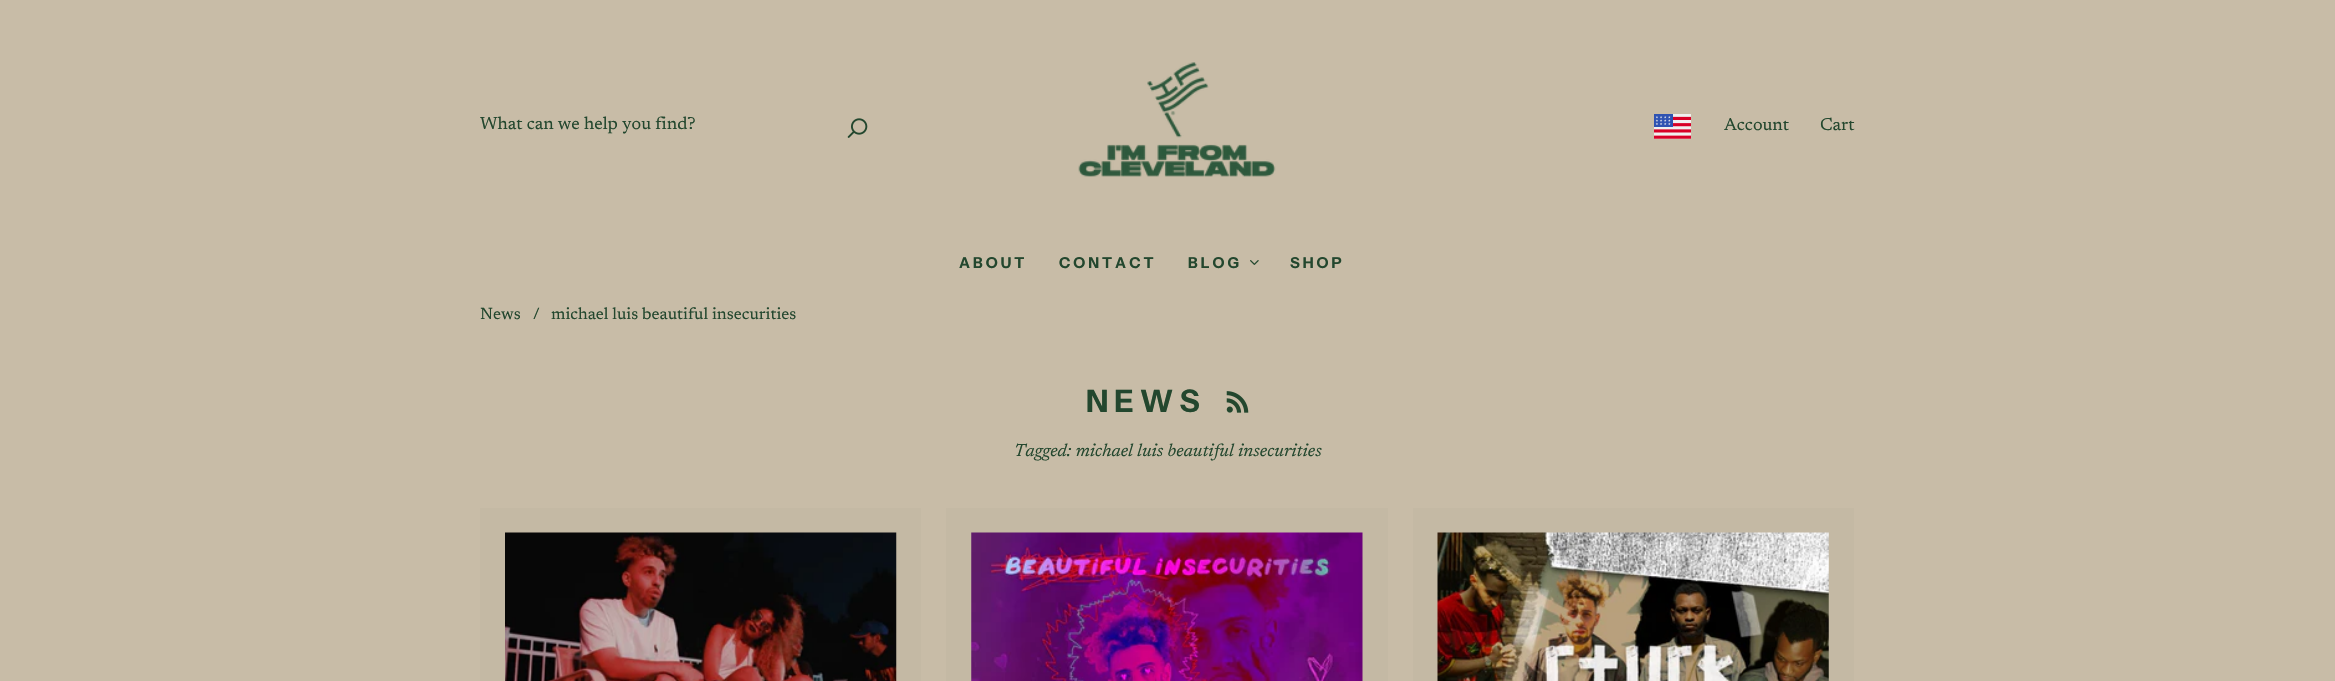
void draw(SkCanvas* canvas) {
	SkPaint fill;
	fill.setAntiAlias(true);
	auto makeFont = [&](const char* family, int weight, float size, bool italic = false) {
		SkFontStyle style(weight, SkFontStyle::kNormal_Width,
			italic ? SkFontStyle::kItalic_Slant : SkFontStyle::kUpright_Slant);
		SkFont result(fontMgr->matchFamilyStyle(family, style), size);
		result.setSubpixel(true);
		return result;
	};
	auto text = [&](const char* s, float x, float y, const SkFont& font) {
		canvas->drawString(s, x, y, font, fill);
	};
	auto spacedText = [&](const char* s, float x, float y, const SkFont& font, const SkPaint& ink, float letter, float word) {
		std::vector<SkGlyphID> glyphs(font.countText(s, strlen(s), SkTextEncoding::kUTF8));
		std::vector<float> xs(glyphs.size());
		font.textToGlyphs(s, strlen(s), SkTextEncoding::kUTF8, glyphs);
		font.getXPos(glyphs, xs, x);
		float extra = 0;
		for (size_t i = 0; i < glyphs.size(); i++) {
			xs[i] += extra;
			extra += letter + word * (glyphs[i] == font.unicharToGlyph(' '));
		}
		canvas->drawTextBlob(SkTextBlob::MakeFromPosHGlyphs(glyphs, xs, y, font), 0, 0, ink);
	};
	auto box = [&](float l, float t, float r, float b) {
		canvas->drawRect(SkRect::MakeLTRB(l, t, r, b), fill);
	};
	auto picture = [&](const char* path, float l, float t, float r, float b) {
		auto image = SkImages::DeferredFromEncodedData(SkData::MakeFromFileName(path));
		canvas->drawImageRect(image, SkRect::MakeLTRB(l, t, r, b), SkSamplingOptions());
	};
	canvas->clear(0xFFC8BCA7);
	picture("image0.png", 847, 118, 868, 138);
	picture("image1.png", 1078, 62, 1276, 177);
	picture("image2.png", 1654, 114, 1691, 139);
	picture("image3.png", 1250, 260, 1259, 265);
	picture("image4.png", 1226, 391, 1249, 413);
	fill.setColor(0xFFC4B9A4);
	box(480, 508, 921, 681);
	picture("image5.png", 505, 532, 897, 681);
	box(946, 508, 1388, 681);
	picture("image6.png", 971, 532, 1363, 681);
	box(1413, 508, 1854, 681);
	picture("image7.png", 1437, 532, 1829, 681);
	auto font1 = makeFont("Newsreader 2", 400, 17.5f);
	fill.setColor(0xFF23472E);
	text("What can we help you find?", 480, 129, font1);
	text("Account", 1724, 130, font1);
	text("Cart", 1820, 130, font1);
	auto font2 = makeFont("Instrument Sans", 700, 15);
	spacedText("ABOUT", 959, 268, font2, fill, 3, 0);
	spacedText("CONTACT", 1059, 268, font2, fill, 3, 0);
	spacedText("BLOG", 1188, 268, font2, fill, 3, 0);
	spacedText("SHOP", 1290, 268, font2, fill, 3, 0);
	auto font3 = makeFont("Newsreader", 400, 16.25f);
	text("News", 480, 319, font3);
	text("/", 533, 319, font3);
	text("michael luis beautiful insecurities", 551, 319, font3);
	auto font4 = makeFont("Instrument Sans", 700, 31);
	spacedText("NEWS", 1086, 412, font4, fill, 6, 0);
	auto font5 = makeFont("Newsreader", 400, 17.5f, true);
	text("Tagged: michael luis beautiful insecurities", 1014, 456, font5);
}
